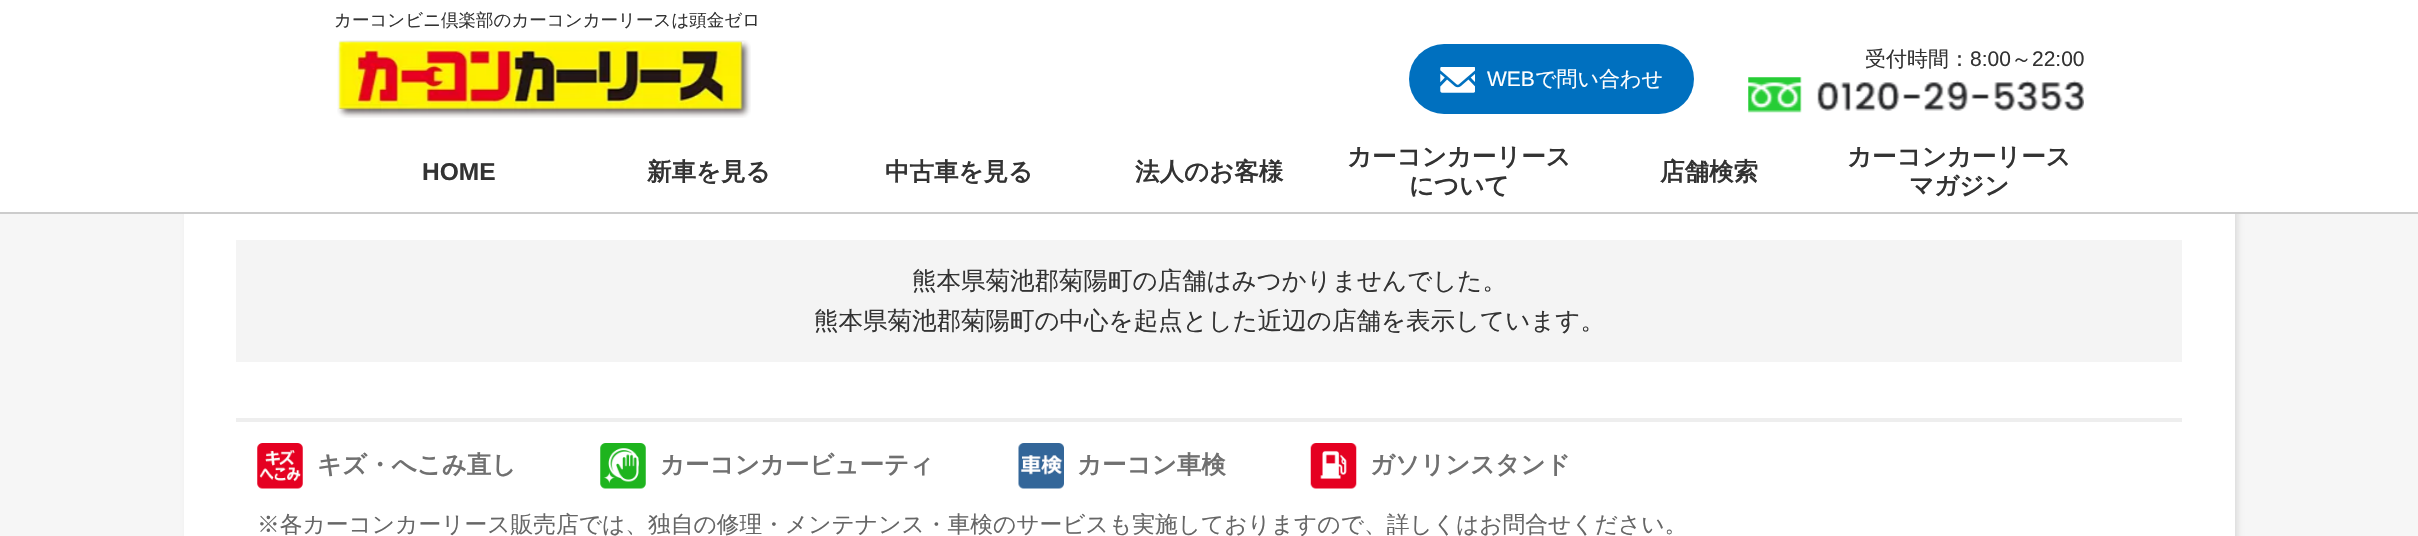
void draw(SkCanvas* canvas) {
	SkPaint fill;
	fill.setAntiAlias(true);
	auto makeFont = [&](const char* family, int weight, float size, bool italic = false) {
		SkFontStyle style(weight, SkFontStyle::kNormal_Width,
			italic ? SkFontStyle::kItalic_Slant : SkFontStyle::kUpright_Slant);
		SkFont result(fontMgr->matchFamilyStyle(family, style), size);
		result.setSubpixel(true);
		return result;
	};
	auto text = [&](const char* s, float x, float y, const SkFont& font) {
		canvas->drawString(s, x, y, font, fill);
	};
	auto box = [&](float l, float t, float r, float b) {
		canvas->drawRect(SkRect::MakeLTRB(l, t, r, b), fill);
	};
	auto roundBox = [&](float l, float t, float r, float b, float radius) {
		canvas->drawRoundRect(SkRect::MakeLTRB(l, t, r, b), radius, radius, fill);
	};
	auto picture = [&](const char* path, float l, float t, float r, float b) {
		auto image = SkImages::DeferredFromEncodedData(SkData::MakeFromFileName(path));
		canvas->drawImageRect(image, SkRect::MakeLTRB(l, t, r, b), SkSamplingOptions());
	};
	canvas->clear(0xFFF6F6F6);
	fill.setColor(0x1A000000);
	fill.setMaskFilter(SkMaskFilter::MakeBlur(kNormal_SkBlurStyle, 2.5f));
	canvas->drawRect(SkRect::MakeLTRB(187, 37, 2238, 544), fill);
	fill.setMaskFilter(nullptr);
	fill.setColor(0xFFFFFFFF);
	box(0, 0, 2418, 212);
	fill.setColor(0xFFCCCCCC);
	box(0, 212, 2418, 214);
	picture("image0.png", 337, 40, 751, 118);
	picture("image1.png", 1748, 77, 2084, 113);
	fill.setColor(0xFF0070BF);
	roundBox(1409, 44, 1694, 114, 35);
	picture("image2.png", 1440, 67, 1475, 93);
	fill.setColor(0xFFFFFFFF);
	box(184, 214, 2235, 536);
	fill.setColor(0xFFF4F4F4);
	box(236, 240, 2182, 362);
	fill.setColor(0xFFEEEEEE);
	box(236, 418, 2182, 422);
	picture("image3.png", 257, 443, 303, 489);
	picture("image4.png", 600, 443, 646, 489);
	picture("image5.png", 1018, 443, 1064, 489);
	picture("image6.png", 1310, 443, 1357, 489);
	auto font1 = makeFont("WenQuanYi Zen Hei", 500, 17.5f);
	fill.setColor(0xFF333333);
	text("カーコンビニ倶楽部のカーコンカーリースは頭金ゼロ", 334, 26, font1);
	auto font2 = makeFont("WenQuanYi Zen Hei", 500, 21);
	text("受付時間：", 1865, 66, font2);
	auto font3 = makeFont("Liberation Sans", 400, 21);
	text("8:00", 1970, 66, font3);
	text("～", 2011, 66, font2);
	text("22:00", 2032, 66, font3);
	fill.setColor(0xFFFFFFFF);
	text("WEB", 1487, 86, font3);
	text("で問い合わせ", 1535, 86, font2);
	auto font4 = makeFont("Liberation Sans", 700, 24.5f);
	fill.setColor(0xFF333333);
	text("HOME", 422, 180, font4);
	auto font5 = makeFont("WenQuanYi Zen Hei", 700, 24.5f);
	text("新車を見る", 647, 180, font5);
	text("中古車を見る", 885, 180, font5);
	text("法人のお客様", 1135, 180, font5);
	text("カーコンカーリース", 1347, 165, font5);
	text("について", 1409, 194, font5);
	text("店舗検索", 1660, 180, font5);
	text("カーコンカーリース", 1847, 165, font5);
	text("マガジン", 1909, 194, font5);
	auto font6 = makeFont("WenQuanYi Zen Hei", 500, 24.5f);
	text("熊本県菊池郡菊陽町の店舗はみつかりませんでした。", 912, 289, font6);
	text("熊本県菊池郡菊陽町の中心を起点とした近辺の店舗を表示しています。", 814, 329, font6);
	fill.setColor(0xFF707070);
	text("キズ・へこみ直し", 317, 473, font5);
	text("カーコンカービューティ", 660, 473, font5);
	text("カーコン車検", 1077, 473, font5);
	text("ガソリンスタンド", 1370, 473, font5);
	auto font7 = makeFont("WenQuanYi Zen Hei", 500, 22.75f);
	fill.setColor(0xFF666666);
	text("※各カーコンカーリース販売店では、独自の修理・メンテナンス・車検のサービスも実施しておりますので、詳しくはお問合せください。", 257, 532, font7);
}
